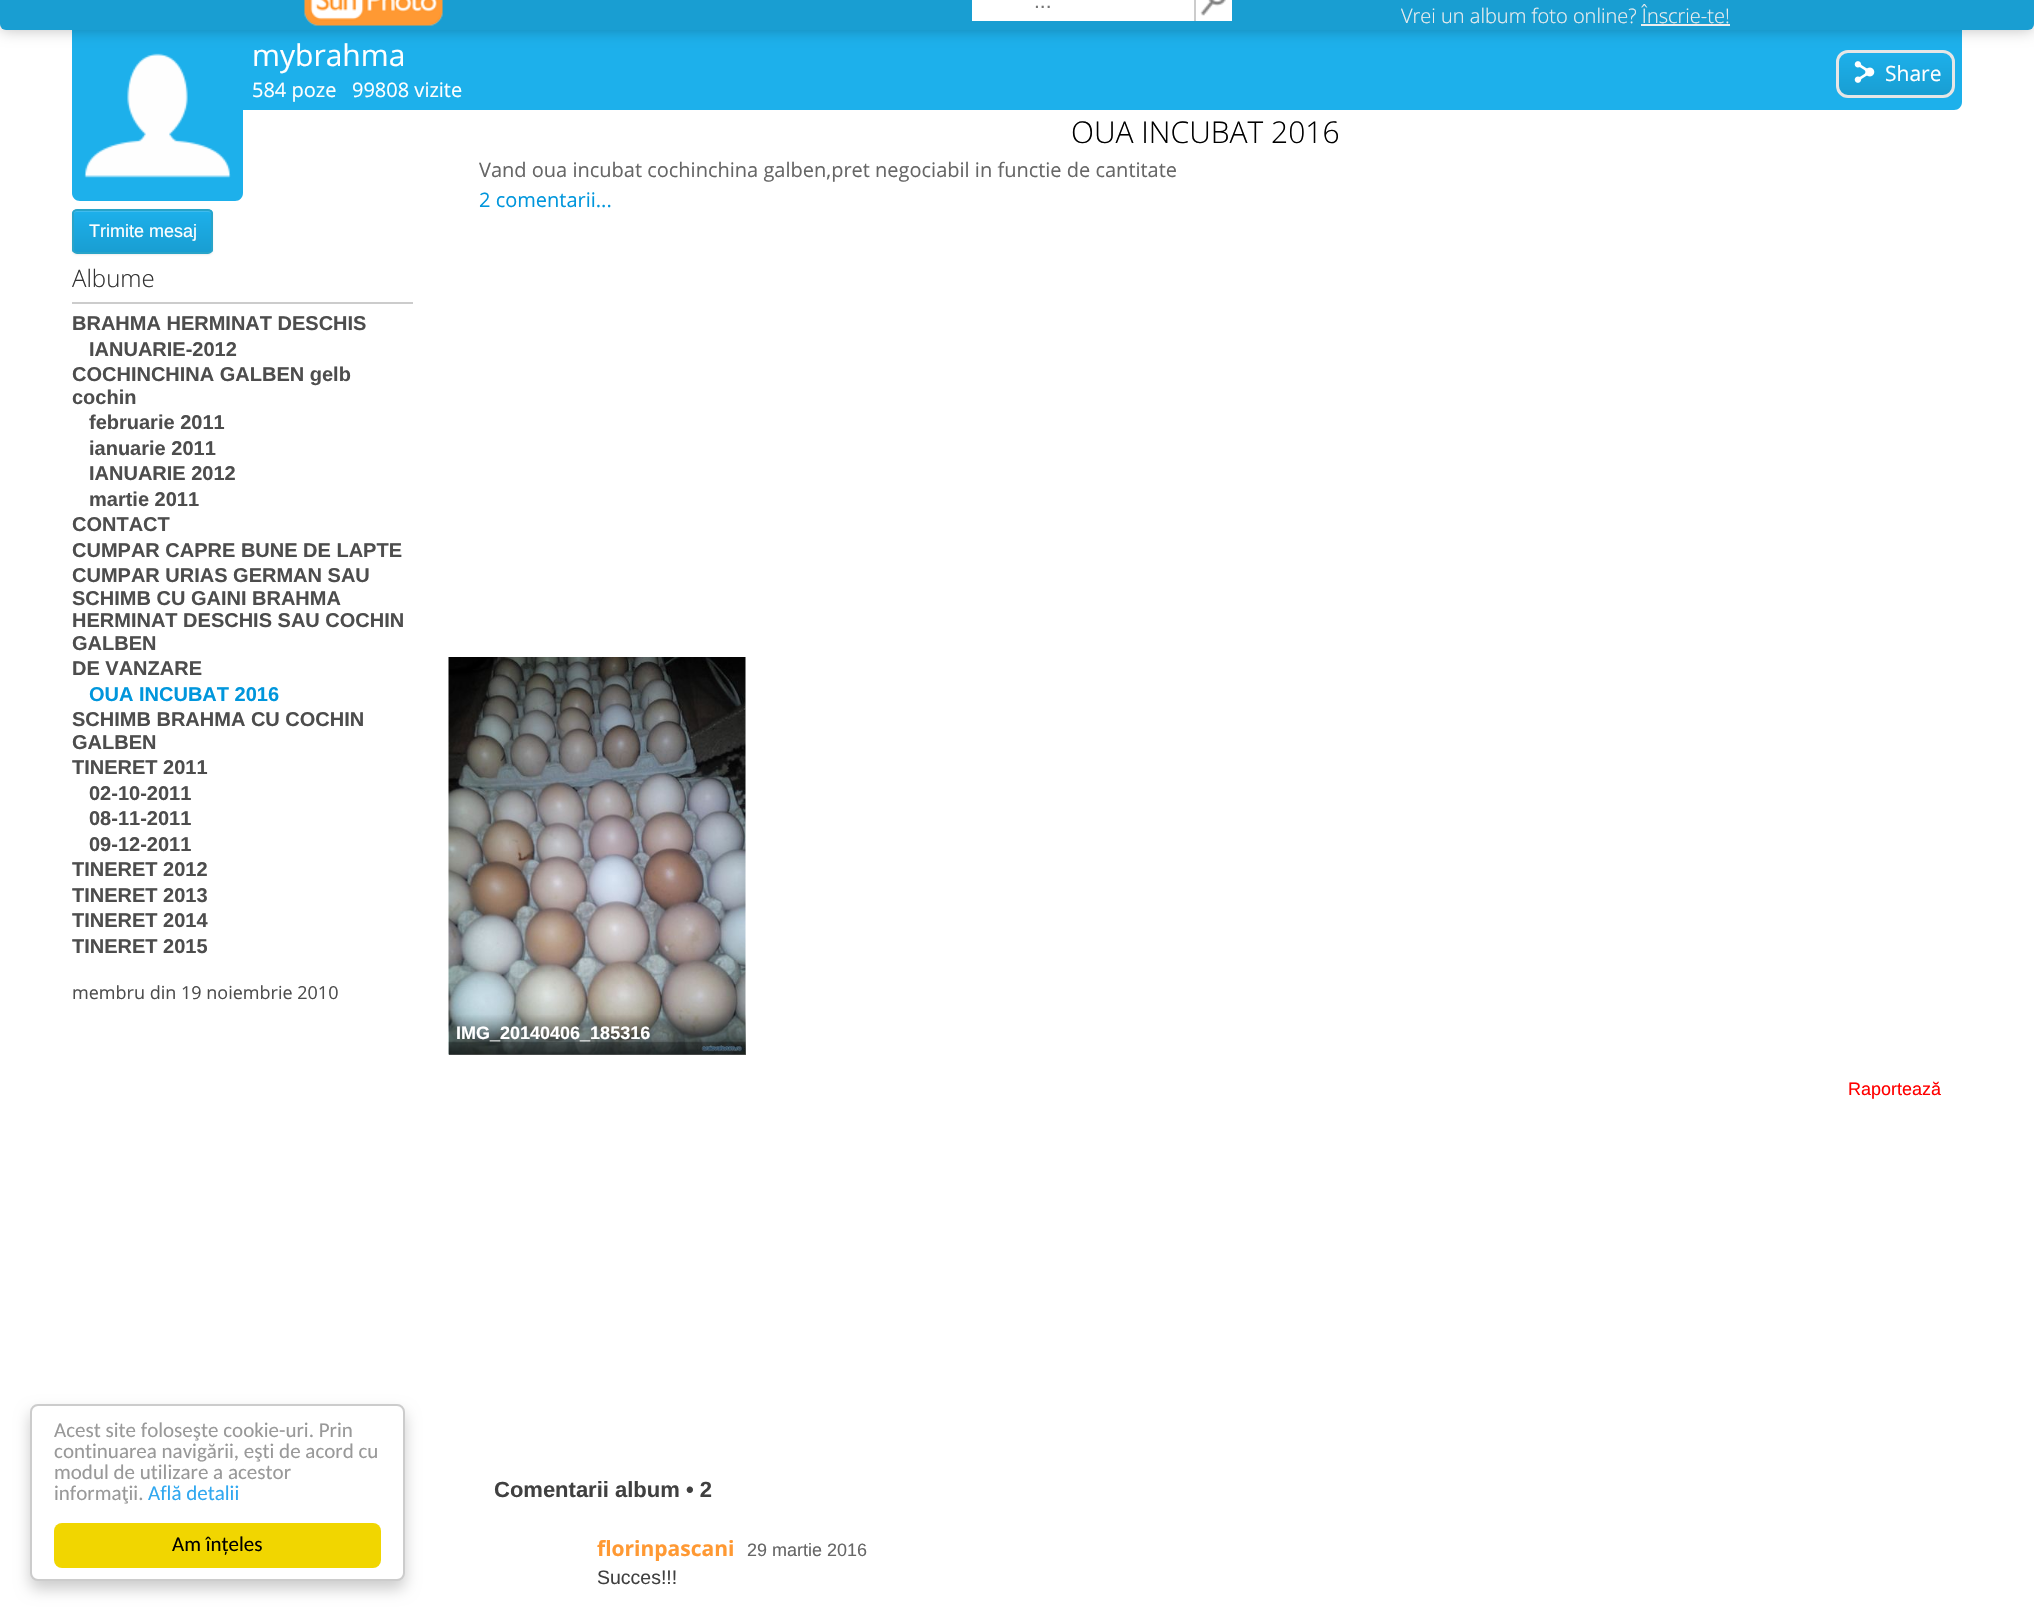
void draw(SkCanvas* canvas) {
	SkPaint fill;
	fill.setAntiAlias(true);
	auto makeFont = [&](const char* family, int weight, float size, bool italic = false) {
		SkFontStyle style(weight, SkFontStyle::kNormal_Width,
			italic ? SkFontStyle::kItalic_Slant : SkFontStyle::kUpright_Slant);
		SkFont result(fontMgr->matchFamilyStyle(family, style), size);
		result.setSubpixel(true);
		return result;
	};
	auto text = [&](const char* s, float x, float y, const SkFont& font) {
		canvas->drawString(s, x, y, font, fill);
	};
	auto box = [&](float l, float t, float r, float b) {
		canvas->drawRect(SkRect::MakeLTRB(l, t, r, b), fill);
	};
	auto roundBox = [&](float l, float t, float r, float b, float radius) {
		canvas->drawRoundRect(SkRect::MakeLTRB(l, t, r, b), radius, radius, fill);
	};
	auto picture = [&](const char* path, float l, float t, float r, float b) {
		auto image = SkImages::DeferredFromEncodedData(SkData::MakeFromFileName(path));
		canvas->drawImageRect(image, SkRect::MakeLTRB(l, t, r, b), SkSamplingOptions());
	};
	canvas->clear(0xFFFFFFFF);
	fill.setColor(0xFF1DB0EB);
	canvas->drawPath(SkPathBuilder().moveTo(72, 30).lineTo(243, 30).lineTo(243, 193).cubicTo(243, 197.5f, 239.5f, 201, 235, 201).lineTo(80, 201).cubicTo(75.5f, 201, 72, 197.5f, 72, 193).close().detach(), fill);
	picture("image2.png", 84, 53, 231, 178);
	canvas->drawPath(SkPathBuilder().moveTo(233, 30).lineTo(1962, 30).lineTo(1962, 102).cubicTo(1962, 106.5f, 1958.5f, 110, 1954, 110).lineTo(233, 110).close().detach(), fill);
	canvas->save();
	canvas->clipPath(SkPathBuilder().moveTo(1848, 50).lineTo(1943, 50).cubicTo(1949.5f, 50, 1955, 55.5f, 1955, 62).lineTo(1955, 86).cubicTo(1955, 92.5f, 1949.5f, 98, 1943, 98).lineTo(1848, 98).cubicTo(1841.5f, 98, 1836, 92.5f, 1836, 86).lineTo(1836, 62).cubicTo(1836, 55.5f, 1841.5f, 50, 1848, 50).close().detach(), true);
	{
		const SkColor colors[] = {0xFF1DB0EB, 0xFF199ED2};
		const float stops[] = {0, 1};
		const SkPoint ends[] = {{1895, 52}, {1895, 95}};
		fill.setShader(SkGradientShader::MakeLinear(ends, colors, stops, 2, SkTileMode::kClamp));
		fill.setAlpha(255);
	}
	box(1836, 53, 1955, 95);
	canvas->restore();
	fill.setStyle(SkPaint::kStroke_Style);
	fill.setStrokeWidth(3);
	fill.setShader(nullptr);
	fill.setColor(0xFFE6E6E6);
	canvas->drawRoundRect(SkRect::MakeLTRB(1837.5f, 51.5f, 1953.5f, 96.5f), 10.5f, 10.5f, fill);
	fill.setStyle(SkPaint::kFill_Style);
	fill.setColor(0x40000000);
	fill.setMaskFilter(SkMaskFilter::MakeBlur(kNormal_SkBlurStyle, 7.5f));
	canvas->drawRoundRect(SkRect::MakeLTRB(0, -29, 2034, 30), 6, 6, fill);
	fill.setMaskFilter(nullptr);
	fill.setColor(0xFF199ED2);
	roundBox(0, -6, 2034, 30, 6);
	picture("image0.png", 304, 0, 443, 26);
	fill.setColor(0xFFFFFFFF);
	box(972, 0, 1194, 21);
	box(1196, 0, 1232, 21);
	fill.setColor(0xFFCCCCCC);
	box(1194, 0, 1196, 21);
	picture("image1.png", 1200, 0, 1226, 16);
	fill.setColor(0xFFEEEEEE);
	box(1641, 24, 1730, 26);
	picture("image3.png", 1854, 61, 1875, 83);
	fill.setColor(0x12000000);
	fill.setMaskFilter(SkMaskFilter::MakeBlur(kNormal_SkBlurStyle, 1));
	canvas->drawRoundRect(SkRect::MakeLTRB(72, 210, 213, 255), 5, 5, fill);
	fill.setMaskFilter(nullptr);
	canvas->save();
	canvas->clipPath(SkPathBuilder().moveTo(77, 209).lineTo(208, 209).cubicTo(211, 209, 213, 211, 213, 214).lineTo(213, 249).cubicTo(213, 252, 211, 254, 208, 254).lineTo(77, 254).cubicTo(74, 254, 72, 252, 72, 249).lineTo(72, 214).cubicTo(72, 211, 74, 209, 77, 209).close().detach(), true);
	{
		const SkColor colors[] = {0xFF1DB0EB, 0xFF199ED2};
		const float stops[] = {0, 1};
		const SkPoint ends[] = {{143, 210}, {143, 252}};
		fill.setShader(SkGradientShader::MakeLinear(ends, colors, stops, 2, SkTileMode::kClamp));
		fill.setAlpha(255);
	}
	box(72, 210, 213, 252);
	canvas->restore();
	fill.setShader(nullptr);
	fill.setColor(0xFF3FBBEE);
	canvas->drawPath(SkPathBuilder().moveTo(76, 212).lineTo(208, 212).cubicTo(210, 212, 212, 213, 212, 214).cubicTo(212, 212, 212, 210, 210, 210).lineTo(76, 210).cubicTo(74, 210, 74, 212, 74, 214).cubicTo(74, 213, 75, 212, 76, 212).close().detach(), fill);
	fill.setStyle(SkPaint::kStroke_Style);
	fill.setStrokeWidth(2);
	fill.setColor(0xFF28A4C9);
	canvas->drawRoundRect(SkRect::MakeLTRB(73, 210, 212, 253), 4, 4, fill);
	fill.setStyle(SkPaint::kFill_Style);
	fill.setColor(0xFFCCCCCC);
	box(72, 302, 413, 304);
	picture("image4.png", 448, 657, 746, 1055);
	{
		const SkColor colors[] = {0x00000000, 0x99000000};
		const float stops[] = {0, 1};
		const SkPoint ends[] = {{597, 1014}, {597, 1055}};
		fill.setShader(SkGradientShader::MakeLinear(ends, colors, stops, 2, SkTileMode::kClamp));
		fill.setAlpha(255);
	}
	box(449, 1015, 746, 1055);
	fill.setShader(nullptr);
	fill.setColor(0x33000000);
	fill.setMaskFilter(SkMaskFilter::MakeBlur(kNormal_SkBlurStyle, 7.5f));
	canvas->drawRoundRect(SkRect::MakeLTRB(30, 1412, 405, 1589), 8, 8, fill);
	fill.setMaskFilter(nullptr);
	fill.setColor(0xFFFFFFFF);
	canvas->drawRoundRect(SkRect::MakeLTRB(31, 1405, 404, 1580), 7, 7, fill);
	fill.setStyle(SkPaint::kStroke_Style);
	fill.setColor(0xFFCCCCCC);
	canvas->drawRoundRect(SkRect::MakeLTRB(31, 1405, 404, 1580), 7, 7, fill);
	fill.setStyle(SkPaint::kFill_Style);
	fill.setColor(0xFFF1D600);
	roundBox(54, 1523, 381, 1568, 8);
	auto font1 = makeFont("Liberation Sans", 400, 21);
	fill.setColor(0xFF757575);
	text("...", 1034, 8, font1);
	auto font2 = makeFont("Open Sans", 300, 20);
	fill.setColor(0xFFEEEEEE);
	text("Vrei un album foto online? Înscrie-te!", 1401, 23, font2);
	auto font3 = makeFont("Open Sans", 400, 30);
	fill.setColor(0xFFFFFFFF);
	text("mybrahma", 252, 66, font3);
	auto font4 = makeFont("Open Sans", 400, 21);
	text("Share", 1885, 81, font4);
	auto font5 = makeFont("Open Sans", 400, 20);
	text("584 poze   99808 vizite", 252, 97, font5);
	auto font6 = makeFont("Liberation Sans", 400, 18);
	text("Trimite mesaj", 89, 237, font6);
	auto font7 = makeFont("Open Sans", 300, 24);
	fill.setColor(0xFF333333);
	text("Albume", 72, 287, font7);
	auto font8 = makeFont("Liberation Sans", 700, 20);
	fill.setColor(0xFF4D4D4D);
	text("BRAHMA HERMINAT DESCHIS", 72, 330, font8);
	text("IANUARIE-2012", 89, 356, font8);
	text("COCHINCHINA GALBEN gelb", 72, 381, font8);
	text("cochin", 72, 404, font8);
	text("februarie 2011", 89, 429, font8);
	text("ianuarie 2011", 89, 455, font8);
	text("IANUARIE 2012", 89, 480, font8);
	text("martie 2011", 89, 506, font8);
	text("CONTACT", 72, 531, font8);
	text("CUMPAR CAPRE BUNE DE LAPTE", 72, 557, font8);
	text("CUMPAR URIAS GERMAN SAU", 72, 582, font8);
	text("SCHIMB CU GAINI BRAHMA", 72, 605, font8);
	text("HERMINAT DESCHIS SAU COCHIN", 72, 627, font8);
	text("GALBEN", 72, 650, font8);
	text("DE VANZARE", 72, 675, font8);
	fill.setColor(0xFF0096DC);
	text("OUA INCUBAT 2016", 89, 701, font8);
	fill.setColor(0xFF4D4D4D);
	text("SCHIMB BRAHMA CU COCHIN", 72, 726, font8);
	text("GALBEN", 72, 749, font8);
	text("TINERET 2011", 72, 774, font8);
	text("02-10-2011", 89, 800, font8);
	text("08-11-2011", 89, 825, font8);
	text("09-12-2011", 89, 851, font8);
	text("TINERET 2012", 72, 876, font8);
	text("TINERET 2013", 72, 902, font8);
	text("TINERET 2014", 72, 927, font8);
	text("TINERET 2015", 72, 953, font8);
	auto font9 = makeFont("Open Sans", 400, 18);
	text("membru din 19 noiembrie 2010", 72, 999, font9);
	auto font10 = makeFont("Open Sans", 300, 30);
	fill.setColor(0xFF000000);
	text("OUA INCUBAT 2016", 1071, 143, font10);
	fill.setColor(0xFF666666);
	text("Vand oua incubat cochinchina galben,pret negociabil in functie de cantitate", 479, 177, font5);
	fill.setColor(0xFF0096DC);
	text("2 comentarii...", 479, 207, font5);
	auto font11 = makeFont("Liberation Sans", 700, 18);
	fill.setColor(0xFFFFFFFF);
	text("IMG_20140406_185316", 456, 1039, font11);
	fill.setColor(0xFFFF0000);
	text("Raportează", 1848, 1095, font6);
	auto font12 = makeFont("Liberation Sans", 700, 22);
	fill.setColor(0xFF404040);
	text("Comentarii album • 2", 494, 1497, font12);
	auto font13 = makeFont("Open Sans", 700, 21);
	fill.setColor(0xFFFF9933);
	text("florinpascani", 597, 1556, font13);
	fill.setColor(0xFF666666);
	text("29 martie 2016", 747, 1556, font6);
	auto font14 = makeFont("Liberation Sans", 400, 19.5f);
	fill.setColor(0xFF404040);
	text("Succes!!!", 597, 1584, font14);
	auto font15 = makeFont("Carlito", 400, 21);
	fill.setColor(0xFF999999);
	text("Acest site foloseşte cookie-uri. Prin", 54, 1437, font15);
	text("continuarea navigării, eşti de acord cu", 54, 1458, font15);
	text("modul de utilizare a acestor", 54, 1479, font15);
	text("informaţii.", 54, 1500, font15);
	fill.setColor(0xFF31A8F0);
	text("Află detalii", 148, 1500, font15);
	fill.setColor(0xFF000000);
	text("Am înțeles", 172, 1551, font15);
}
